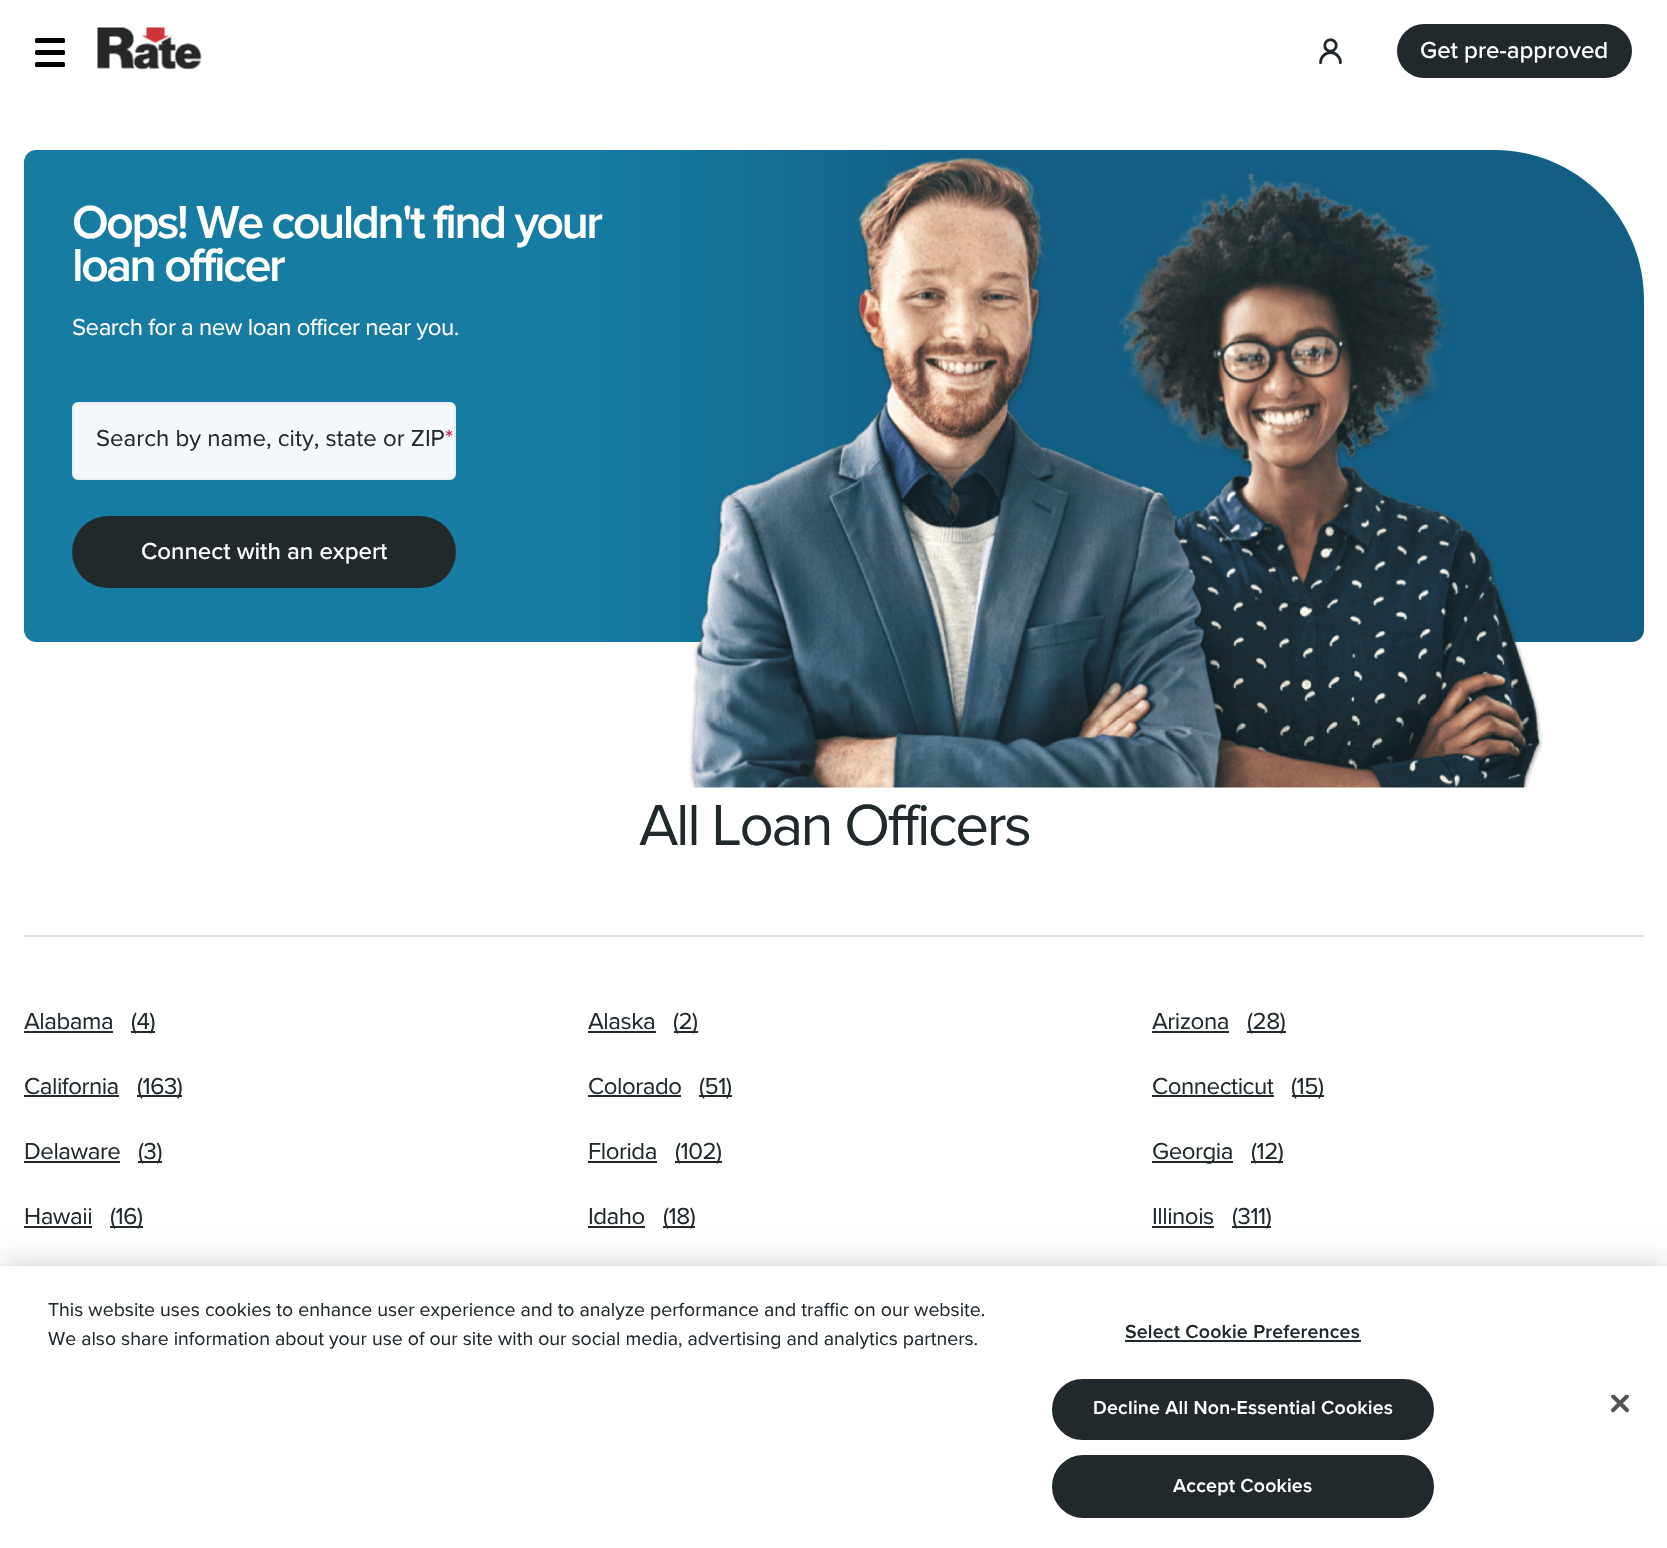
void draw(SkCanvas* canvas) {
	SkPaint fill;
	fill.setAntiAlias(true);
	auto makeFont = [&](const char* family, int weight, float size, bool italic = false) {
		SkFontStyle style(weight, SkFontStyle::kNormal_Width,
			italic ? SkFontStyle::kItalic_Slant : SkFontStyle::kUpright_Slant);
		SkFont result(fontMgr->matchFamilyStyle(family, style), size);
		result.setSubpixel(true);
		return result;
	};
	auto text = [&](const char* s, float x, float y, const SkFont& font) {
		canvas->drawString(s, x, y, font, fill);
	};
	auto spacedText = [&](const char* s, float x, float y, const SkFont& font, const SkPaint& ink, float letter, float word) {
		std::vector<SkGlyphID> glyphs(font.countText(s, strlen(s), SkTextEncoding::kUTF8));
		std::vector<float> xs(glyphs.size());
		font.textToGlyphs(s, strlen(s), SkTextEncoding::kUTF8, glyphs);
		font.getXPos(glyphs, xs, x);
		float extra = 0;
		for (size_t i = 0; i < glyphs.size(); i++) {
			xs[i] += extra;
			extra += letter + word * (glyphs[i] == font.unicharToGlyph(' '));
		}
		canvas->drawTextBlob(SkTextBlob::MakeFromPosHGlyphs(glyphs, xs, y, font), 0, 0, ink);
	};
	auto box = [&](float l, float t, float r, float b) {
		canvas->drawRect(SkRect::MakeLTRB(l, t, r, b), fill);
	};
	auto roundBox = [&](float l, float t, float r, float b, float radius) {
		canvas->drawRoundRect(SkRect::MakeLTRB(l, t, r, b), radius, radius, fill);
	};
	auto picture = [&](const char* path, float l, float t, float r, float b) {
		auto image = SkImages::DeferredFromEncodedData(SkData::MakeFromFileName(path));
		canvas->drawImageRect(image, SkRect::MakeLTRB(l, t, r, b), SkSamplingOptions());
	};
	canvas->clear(0xFFFFFFFF);
	fill.setColor(0xFF000000);
	roundBox(35, 38, 65, 43, 1.5f);
	roundBox(35, 50, 65, 55, 1.5f);
	roundBox(35, 62, 65, 67, 1.5f);
	picture("image0.png", 97, 27, 202, 70);
	picture("image1.png", 1319, 38, 1342, 64);
	fill.setColor(0xFF21292D);
	roundBox(1397, 24, 1632, 78, 27);
	{
		const SkColor colors[] = {0xFF167CA1, 0xFF125E85};
		const float stops[] = {0.35f, 0.58f};
		const SkPoint ends[] = {{24, 396}, {1644, 396}};
		fill.setShader(SkGradientShader::MakeLinear(ends, colors, stops, 2, SkTileMode::kClamp));
		fill.setAlpha(255);
	}
	canvas->drawPath(SkPathBuilder().moveTo(36, 150).lineTo(1494, 150).cubicTo(1577, 150, 1644, 217, 1644, 300).lineTo(1644, 630).cubicTo(1644, 636.5f, 1638.5f, 642, 1632, 642).lineTo(36, 642).cubicTo(29.5f, 642, 24, 636.5f, 24, 630).lineTo(24, 162).cubicTo(24, 155.5f, 29.5f, 150, 36, 150).close().detach(), fill);
	fill.setShader(nullptr);
	fill.setColor(0xFFF5F8FA);
	canvas->drawRoundRect(SkRect::MakeLTRB(73, 403, 455, 479), 5, 5, fill);
	fill.setStyle(SkPaint::kStroke_Style);
	fill.setStrokeWidth(2);
	fill.setColor(0xFFE9EFF2);
	canvas->drawRoundRect(SkRect::MakeLTRB(73, 403, 455, 479), 5, 5, fill);
	fill.setStyle(SkPaint::kFill_Style);
	fill.setColor(0xFF21292D);
	roundBox(72, 516, 456, 588, 36);
	picture("image2.png", 688, 155, 1543, 788);
	fill.setColor(0xFFDEDFE0);
	box(24, 935, 1644, 937);
	fill.setColor(0xFF21292D);
	box(24, 1031, 113, 1033);
	box(131, 1031, 155, 1033);
	box(588, 1031, 656, 1033);
	box(674, 1031, 679, 1033);
	box(678, 1031, 698, 1033);
	box(1152, 1031, 1229, 1033);
	box(1247, 1031, 1286, 1033);
	box(24, 1095, 119, 1097);
	box(137, 1095, 182, 1097);
	box(588, 1095, 681, 1097);
	box(699, 1095, 732, 1097);
	box(1152, 1095, 1274, 1097);
	box(1292, 1095, 1297, 1097);
	box(1296, 1095, 1324, 1097);
	box(24, 1161, 120, 1163);
	box(138, 1161, 162, 1163);
	box(588, 1161, 657, 1163);
	box(675, 1161, 722, 1163);
	box(1152, 1161, 1233, 1163);
	box(1251, 1161, 1283, 1163);
	box(24, 1226, 92, 1228);
	box(110, 1226, 143, 1228);
	box(588, 1226, 645, 1228);
	box(663, 1226, 695, 1228);
	box(1152, 1226, 1214, 1228);
	box(1232, 1226, 1271, 1228);
	fill.setColor(0x33000000);
	fill.setMaskFilter(SkMaskFilter::MakeBlur(kNormal_SkBlurStyle, 13.5f));
	canvas->drawRect(SkRect::MakeLTRB(0, 1266, 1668, 1548), fill);
	fill.setMaskFilter(nullptr);
	fill.setColor(0xFFFFFFFF);
	box(0, 1266, 1667, 1548);
	fill.setColor(0xFF21292D);
	box(1125, 1340, 1361, 1342);
	canvas->drawRoundRect(SkRect::MakeLTRB(1053, 1380, 1433, 1439), 29.5f, 29.5f, fill);
	fill.setStyle(SkPaint::kStroke_Style);
	canvas->drawRoundRect(SkRect::MakeLTRB(1053, 1380, 1433, 1439), 29.5f, 29.5f, fill);
	fill.setStyle(SkPaint::kFill_Style);
	canvas->drawRoundRect(SkRect::MakeLTRB(1053, 1456, 1433, 1517), 30.5f, 30.5f, fill);
	fill.setStyle(SkPaint::kStroke_Style);
	canvas->drawRoundRect(SkRect::MakeLTRB(1053, 1456, 1433, 1517), 30.5f, 30.5f, fill);
	picture("image3.png", 1611, 1395, 1629, 1413);
	auto font1 = makeFont("Proxima Nova", 500, 24);
	fill.setStyle(SkPaint::kFill_Style);
	fill.setColor(0xFFFFFFFF);
	text("Get pre-approved", 1420, 58, font1);
	auto font2 = makeFont("Proxima Nova", 600, 48);
	spacedText("Oops! We couldn't find your", 72, 238, font2, fill, -2.4f, 0);
	spacedText("loan officer", 72, 281, font2, fill, -2.4f, 0);
	auto font3 = makeFont("Proxima Nova", 400, 24);
	spacedText("Search for a new loan officer near you.", 72, 335, font3, fill, -0.45f, 0);
	fill.setColor(0xFF21292D);
	text("Search by name, city, state or ZIP", 96, 446, font3);
	fill.setColor(0xFFC12950);
	text("*", 445, 446, font3);
	fill.setColor(0xFFFFFFFF);
	text("Connect with an expert", 141, 559, font1);
	auto font4 = makeFont("Proxima Nova", 400, 60);
	fill.setColor(0xFF21292D);
	spacedText("All Loan Officers", 639, 845, font4, fill, -2.4f, 0);
	spacedText("Alabama", 24, 1029, font3, fill, -0.45f, 0);
	spacedText("(4)", 131, 1029, font3, fill, -0.45f, 0);
	spacedText("Alaska", 588, 1029, font3, fill, -0.45f, 0);
	spacedText("(2", 673, 1029, font3, fill, -0.45f, 0);
	spacedText(")", 692, 1029, font3, fill, -0.45f, 0);
	spacedText("Arizona", 1152, 1029, font3, fill, -0.45f, 0);
	spacedText("(28)", 1247, 1029, font3, fill, -0.45f, 0);
	spacedText("California", 24, 1094, font3, fill, -0.45f, 0);
	spacedText("(163)", 137, 1094, font3, fill, -0.45f, 0);
	spacedText("Colorado", 588, 1094, font3, fill, -0.45f, 0);
	spacedText("(51)", 699, 1094, font3, fill, -0.45f, 0);
	spacedText("Connecticut", 1152, 1094, font3, fill, -0.45f, 0);
	spacedText("(15", 1291, 1094, font3, fill, -0.45f, 0);
	spacedText(")", 1318, 1094, font3, fill, -0.45f, 0);
	spacedText("Delaware", 24, 1159, font3, fill, -0.45f, 0);
	spacedText("(3)", 138, 1159, font3, fill, -0.45f, 0);
	spacedText("Florida", 588, 1159, font3, fill, -0.45f, 0);
	spacedText("(102)", 675, 1159, font3, fill, -0.45f, 0);
	spacedText("Georgia", 1152, 1159, font3, fill, -0.45f, 0);
	spacedText("(12)", 1251, 1159, font3, fill, -0.45f, 0);
	spacedText("Hawaii", 24, 1224, font3, fill, -0.45f, 0);
	spacedText("(16)", 110, 1224, font3, fill, -0.45f, 0);
	spacedText("Idaho", 588, 1224, font3, fill, -0.45f, 0);
	spacedText("(18)", 663, 1224, font3, fill, -0.45f, 0);
	spacedText("Illinois", 1152, 1224, font3, fill, -0.45f, 0);
	spacedText("(311)", 1232, 1224, font3, fill, -0.45f, 0);
	auto font5 = makeFont("Proxima Nova", 400, 19.5f);
	text("This website uses cookies to enhance user experience and to analyze performance and traffic on our website.", 48, 1316, font5);
	text("We also share information about your use of our site with our social media, advertising and analytics partners.", 48, 1345, font5);
	auto font6 = makeFont("Proxima Nova", 600, 19.5f);
	spacedText("Select Cookie Preferences", 1125, 1338, font6, fill, 0.2f, 0);
	fill.setColor(0xFFFFFFFF);
	spacedText("Decline All Non-Essential Cookies", 1093, 1414, font6, fill, 0.2f, 0);
	spacedText("Accept Cookies", 1173, 1492, font6, fill, 0.2f, 0);
}
